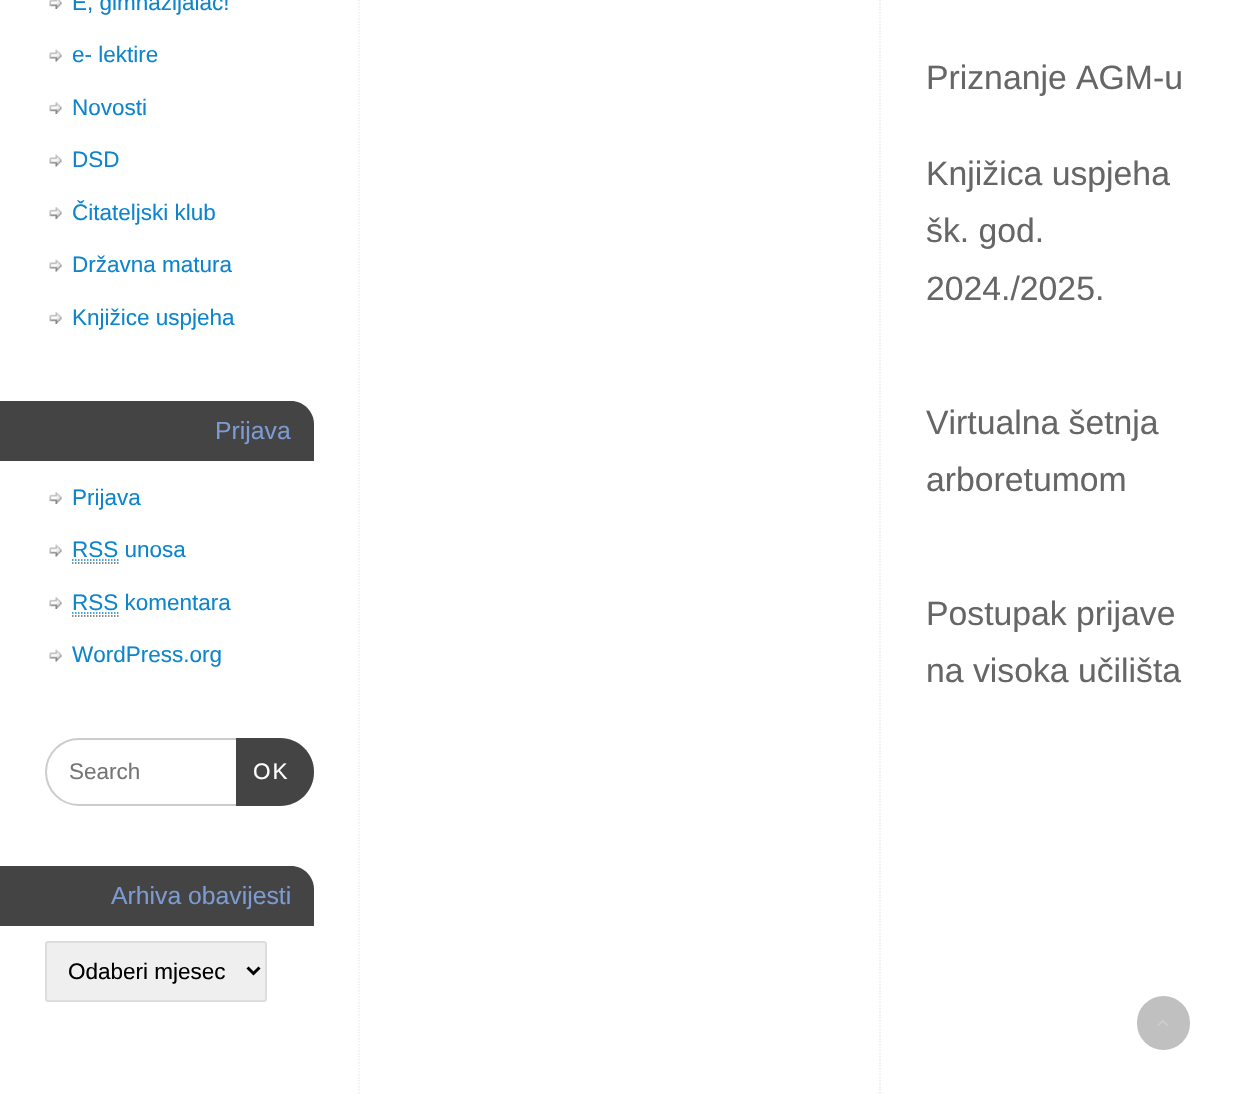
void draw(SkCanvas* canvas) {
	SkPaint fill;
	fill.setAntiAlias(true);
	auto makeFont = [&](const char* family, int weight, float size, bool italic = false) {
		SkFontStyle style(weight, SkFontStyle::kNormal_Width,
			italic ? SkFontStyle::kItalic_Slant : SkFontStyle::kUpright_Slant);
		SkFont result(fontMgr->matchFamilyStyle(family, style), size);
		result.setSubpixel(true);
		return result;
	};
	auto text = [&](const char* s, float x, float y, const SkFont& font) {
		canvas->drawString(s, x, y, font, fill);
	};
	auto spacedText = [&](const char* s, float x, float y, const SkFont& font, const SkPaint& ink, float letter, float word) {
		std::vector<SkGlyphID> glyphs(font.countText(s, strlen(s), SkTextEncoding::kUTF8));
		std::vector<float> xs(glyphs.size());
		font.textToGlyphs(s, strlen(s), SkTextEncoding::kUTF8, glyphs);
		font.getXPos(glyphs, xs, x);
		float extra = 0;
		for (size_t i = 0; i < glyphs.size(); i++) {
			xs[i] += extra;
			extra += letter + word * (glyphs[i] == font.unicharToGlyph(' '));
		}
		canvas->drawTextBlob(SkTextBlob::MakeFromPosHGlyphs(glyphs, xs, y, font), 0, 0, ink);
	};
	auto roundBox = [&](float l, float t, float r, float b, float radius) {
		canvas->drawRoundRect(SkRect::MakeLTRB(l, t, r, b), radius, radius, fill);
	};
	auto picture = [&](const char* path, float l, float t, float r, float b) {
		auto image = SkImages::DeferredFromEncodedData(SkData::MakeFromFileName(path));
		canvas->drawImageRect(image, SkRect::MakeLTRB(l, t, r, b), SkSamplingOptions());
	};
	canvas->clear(0xFFFFFFFF);
	fill.setStyle(SkPaint::kStroke_Style);
	fill.setStrokeWidth(1.5f);
	fill.setColor(0xFFEEEEEE);
	fill.setPathEffect(SkDashPathEffect::Make({{1.5f, 1.5f}}, 0));
	canvas->drawPath(SkPathBuilder().moveTo(359, -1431).lineTo(359, 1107).detach(), fill);
	fill.setPathEffect(nullptr);
	picture("image0.png", 49, 0, 62, 9);
	picture("image1.png", 49, 49, 62, 62);
	picture("image2.png", 49, 102, 62, 114);
	picture("image1.png", 49, 154, 62, 167);
	picture("image2.png", 49, 207, 62, 219);
	picture("image1.png", 49, 259, 62, 272);
	picture("image2.png", 49, 312, 62, 324);
	fill.setStyle(SkPaint::kFill_Style);
	fill.setColor(0xFF444444);
	canvas->drawPath(SkPathBuilder().moveTo(0, 401).lineTo(291, 401).cubicTo(303.5f, 401, 314, 411.5f, 314, 424).lineTo(314, 461).lineTo(0, 461).close().detach(), fill);
	picture("image2.png", 49, 492, 62, 504);
	picture("image1.png", 49, 544, 62, 557);
	fill.setStyle(SkPaint::kStroke_Style);
	fill.setColor(0xFF666666);
	fill.setPathEffect(SkDashPathEffect::Make({{1.5f, 1.5f}}, 0));
	canvas->drawPath(SkPathBuilder().moveTo(72, 563).lineTo(118.5f, 563).detach(), fill);
	fill.setPathEffect(nullptr);
	fill.setColor(0xFF0D85CC);
	fill.setPathEffect(SkDashPathEffect::Make({{1.5f, 1.5f}}, 0));
	canvas->drawPath(SkPathBuilder().moveTo(72, 560).lineTo(118.5f, 560).detach(), fill);
	fill.setPathEffect(nullptr);
	picture("image2.png", 49, 597, 62, 609);
	fill.setColor(0xFF666666);
	fill.setPathEffect(SkDashPathEffect::Make({{1.5f, 1.5f}}, 0));
	canvas->drawPath(SkPathBuilder().moveTo(72, 616).lineTo(118.5f, 616).detach(), fill);
	fill.setPathEffect(nullptr);
	fill.setColor(0xFF0D85CC);
	fill.setPathEffect(SkDashPathEffect::Make({{1.5f, 1.5f}}, 0));
	canvas->drawPath(SkPathBuilder().moveTo(72, 613).lineTo(118.5f, 613).detach(), fill);
	fill.setPathEffect(nullptr);
	picture("image1.png", 49, 649, 62, 662);
	fill.setStrokeWidth(2);
	fill.setColor(0xFFCCCCCC);
	canvas->drawRoundRect(SkRect::MakeLTRB(46, 739, 313, 805), 33, 33, fill);
	fill.setStyle(SkPaint::kFill_Style);
	fill.setColor(0xFF444444);
	canvas->drawPath(SkPathBuilder().moveTo(236, 738).lineTo(280, 738).cubicTo(299, 738, 314, 753, 314, 772).cubicTo(314, 791, 299, 806, 280, 806).lineTo(236, 806).close().detach(), fill);
	canvas->drawPath(SkPathBuilder().moveTo(0, 866).lineTo(291, 866).cubicTo(303.5f, 866, 314, 876.5f, 314, 889).lineTo(314, 926).lineTo(0, 926).close().detach(), fill);
	fill.setColor(0xFFEFEFEF);
	canvas->drawRoundRect(SkRect::MakeLTRB(46, 942, 266, 1001), 2, 2, fill);
	fill.setStyle(SkPaint::kStroke_Style);
	fill.setColor(0xFFDDDDDD);
	canvas->drawRoundRect(SkRect::MakeLTRB(46, 942, 266, 1001), 2, 2, fill);
	fill.setStrokeWidth(3);
	fill.setColor(0xFF000000);
	canvas->drawPath(SkPathBuilder().moveTo(247.5f, 967.5f).lineTo(253.5f, 973.5f).lineTo(259.5f, 967.5f).detach(), fill);
	fill.setStrokeWidth(1.5f);
	fill.setColor(0xFFEAEAEA);
	fill.setPathEffect(SkDashPathEffect::Make({{1.5f, 1.5f}}, 0));
	canvas->drawPath(SkPathBuilder().moveTo(880, -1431).lineTo(880, 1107).detach(), fill);
	fill.setPathEffect(nullptr);
	fill.setStyle(SkPaint::kFill_Style);
	fill.setColor(0xFFC0C0C0);
	roundBox(1137, 996, 1190, 1050, 26.5f);
	picture("image3.png", 1157, 1020, 1168, 1026);
	auto font1 = makeFont("Liberation Sans", 400, 22.5f);
	fill.setColor(0xFF0D85CC);
	text("E, gimnazijalac!", 72, 10, font1);
	text("e- lektire", 72, 62, font1);
	text("Novosti", 72, 115, font1);
	text("DSD", 72, 167, font1);
	text("Čitateljski klub", 72, 220, font1);
	text("Državna matura", 72, 272, font1);
	text("Knjižice uspjeha", 72, 325, font1);
	auto font2 = makeFont("Liberation Sans", 400, 24.75f);
	fill.setColor(0xFF7C9BD2);
	text("Prijava", 215, 439, font2);
	fill.setColor(0xFF0D85CC);
	text("Prijava", 72, 505, font1);
	text("RSS unosa", 72, 557, font1);
	text("RSS komentara", 72, 610, font1);
	text("WordPress.org", 72, 662, font1);
	fill.setColor(0xFF757575);
	text("Search", 69, 779, font1);
	fill.setColor(0xFFFFFFFF);
	spacedText("OK", 253, 779, font1, fill, 2, 0);
	fill.setColor(0xFF7C9BD2);
	text("Arhiva obavijesti", 111, 904, font2);
	fill.setColor(0xFF000000);
	text("Odaberi mjesec", 68, 979, font1);
	auto font3 = makeFont("Liberation Sans", 400, 33.75f);
	fill.setColor(0xFF666666);
	text("Priznanje AGM-u", 926, 89, font3);
	text("Knjižica uspjeha", 926, 185, font3);
	text("šk. god.", 926, 242, font3);
	text("2024./2025.", 926, 300, font3);
	text("Virtualna šetnja", 926, 434, font3);
	text("arboretumom", 926, 491, font3);
	text("Postupak prijave", 926, 625, font3);
	text("na visoka učilišta", 926, 682, font3);
}
